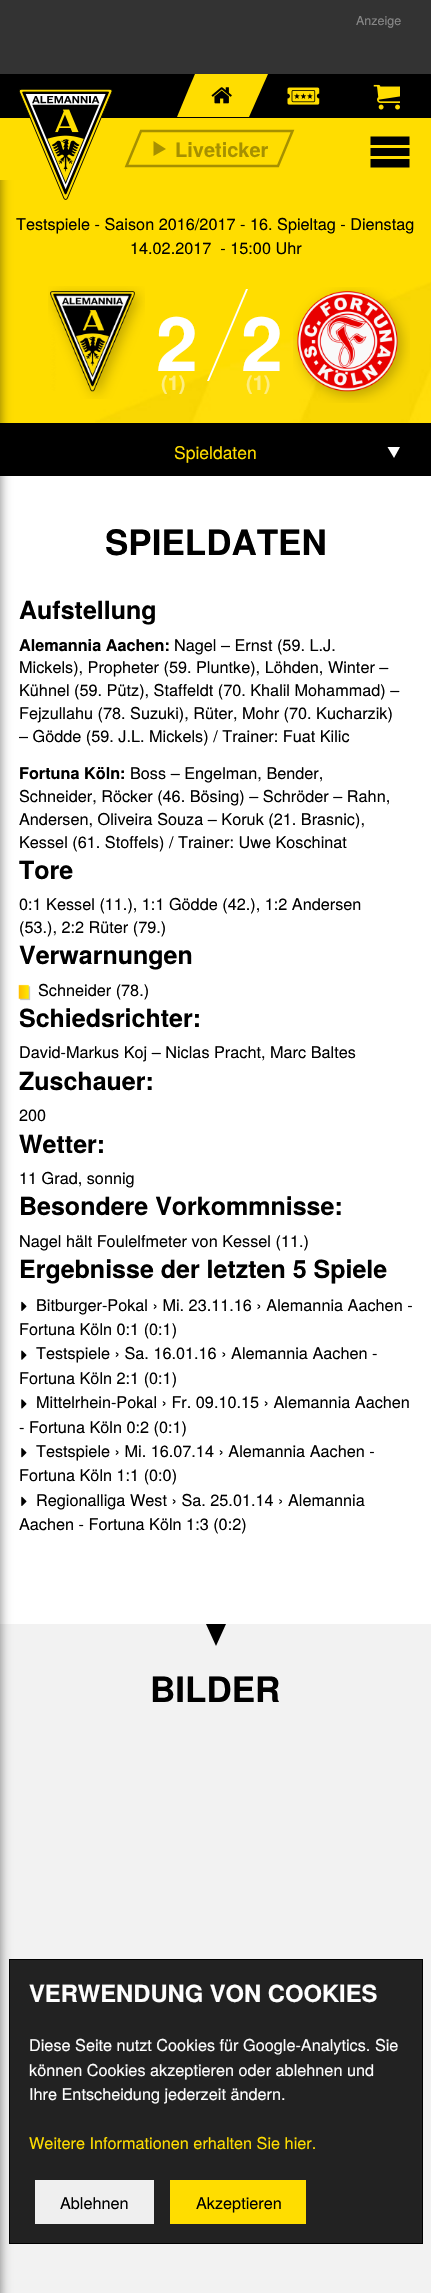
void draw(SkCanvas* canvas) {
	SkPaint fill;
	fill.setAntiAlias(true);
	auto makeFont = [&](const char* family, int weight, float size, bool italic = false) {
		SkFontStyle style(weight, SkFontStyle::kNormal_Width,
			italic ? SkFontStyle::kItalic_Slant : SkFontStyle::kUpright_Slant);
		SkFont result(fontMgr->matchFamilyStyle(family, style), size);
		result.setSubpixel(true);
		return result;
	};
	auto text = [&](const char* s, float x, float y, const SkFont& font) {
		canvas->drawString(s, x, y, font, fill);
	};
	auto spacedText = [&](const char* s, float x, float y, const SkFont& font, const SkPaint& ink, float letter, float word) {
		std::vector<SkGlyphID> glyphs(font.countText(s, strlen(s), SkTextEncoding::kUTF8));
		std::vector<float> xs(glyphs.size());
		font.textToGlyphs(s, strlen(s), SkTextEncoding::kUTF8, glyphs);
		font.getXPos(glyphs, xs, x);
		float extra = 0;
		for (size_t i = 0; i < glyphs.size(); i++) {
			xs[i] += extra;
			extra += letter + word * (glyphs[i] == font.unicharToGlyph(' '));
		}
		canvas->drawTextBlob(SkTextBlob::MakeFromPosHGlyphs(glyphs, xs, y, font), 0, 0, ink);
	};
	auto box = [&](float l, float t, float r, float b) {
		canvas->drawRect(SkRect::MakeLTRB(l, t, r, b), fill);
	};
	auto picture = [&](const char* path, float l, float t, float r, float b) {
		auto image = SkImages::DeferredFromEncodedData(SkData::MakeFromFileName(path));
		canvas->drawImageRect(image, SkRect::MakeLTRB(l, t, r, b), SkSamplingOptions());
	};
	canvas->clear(0xFF333333);
	fill.setColor(0xFFFFFFFF);
	box(0, 476, 431, 1624);
	fill.setColor(0xFFFFDD00);
	box(0, 180, 431, 423);
	fill.setColor(0xFF000000);
	box(0, 423, 431, 476);
	picture("image7.png", 18, 984, 31, 1001);
	fill.setColor(0xFFF2F2F2);
	box(0, 1624, 431, 2293);
	fill.setColor(0x80000000);
	fill.setMaskFilter(SkMaskFilter::MakeBlur(kNormal_SkBlurStyle, 6));
	canvas->drawRect(SkRect::MakeLTRB(-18, 106, 0, 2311), fill);
	fill.setMaskFilter(nullptr);
	fill.setColor(0xFF000000);
	box(0, 74, 431, 118);
	fill.setColor(0xFFFFDD00);
	box(0, 118, 431, 180);
	picture("image0.png", 19, 89, 113, 200);
	canvas->drawPath(SkPathBuilder().moveTo(189, 88).lineTo(195, 74).lineTo(268, 74).lineTo(249, 117).lineTo(177, 117).close().detach(), fill);
	picture("image1.png", 211, 87, 232, 104);
	picture("image2.png", 287, 87, 320, 105);
	picture("image3.png", 373, 84, 400, 110);
	fill.setStyle(SkPaint::kStroke_Style);
	fill.setStrokeWidth(2.5f);
	fill.setColor(0xFFA69000);
	canvas->drawPath(SkPathBuilder().moveTo(141, 131).lineTo(292.5f, 131).lineTo(278, 166).lineTo(126.5f, 166).close().detach(), fill);
	fill.setStyle(SkPaint::kFill_Style);
	canvas->drawPath(SkPathBuilder().moveTo(153.5f, 141).lineTo(166, 149).lineTo(153.5f, 156).close().detach(), fill);
	fill.setColor(0xFF000000);
	canvas->drawPath(SkPathBuilder().moveTo(370.5f, 136.5f).lineTo(409.5f, 136.5f).lineTo(409.5f, 145).lineTo(370.5f, 145).close().moveTo(370.5f, 148).lineTo(409.5f, 148).lineTo(409.5f, 156).lineTo(370.5f, 156).close().moveTo(370.5f, 159).lineTo(409.5f, 159).lineTo(409.5f, 167.5f).lineTo(370.5f, 167.5f).close().detach(), fill);
	picture("image4.png", 95, 282, 431, 423);
	picture("image5.png", 48, 286, 145, 399);
	fill.setColor(0xFFFFFFFF);
	canvas->drawPath(SkPathBuilder().moveTo(246, 289).lineTo(248, 289).lineTo(209, 381).lineTo(207, 381).close().detach(), fill);
	picture("image6.png", 293, 287, 410, 403);
	canvas->drawPath(SkPathBuilder().moveTo(387.5f, 447).lineTo(400, 447).lineTo(394, 458).close().detach(), fill);
	picture("image8.png", 21, 1301, 27, 1311);
	picture("image9.png", 21, 1350, 27, 1360);
	picture("image10.png", 21, 1399, 27, 1409);
	picture("image11.png", 21, 1448, 27, 1458);
	picture("image8.png", 21, 1496, 27, 1506);
	fill.setColor(0xFF000000);
	canvas->drawPath(SkPathBuilder().moveTo(206, 1624).lineTo(226, 1624).lineTo(216, 1646).close().detach(), fill);
	fill.setColor(0xFF222222);
	canvas->drawRect(SkRect::MakeLTRB(9.5f, 1959.5f, 422.5f, 2243.5f), fill);
	fill.setStyle(SkPaint::kStroke_Style);
	fill.setStrokeWidth(1);
	fill.setColor(0xFF000000);
	canvas->drawRect(SkRect::MakeLTRB(9.5f, 1959.5f, 422.5f, 2243.5f), fill);
	fill.setStyle(SkPaint::kFill_Style);
	fill.setColor(0xFFEFEFEF);
	box(35, 2180, 154, 2224);
	fill.setColor(0xFFFFDD00);
	box(170, 2180, 306, 2224);
	auto font1 = makeFont("TeX Gyre Heros", 400, 12.5f);
	fill.setColor(0xFF888888);
	text("Anzeige", 356, 25, font1);
	auto font2 = makeFont("TeX Gyre Heros", 700, 20);
	fill.setColor(0xFFA69000);
	text("Liveticker", 175, 157, font2);
	auto font3 = makeFont("TeX Gyre Heros", 400, 16.25f);
	fill.setColor(0xFF000000);
	text("Testspiele - Saison 2016/2017 - 16. Spieltag - Dienstag", 16, 230, font3);
	text("14.02.2017  - 15:00 Uhr", 130, 254, font3);
	auto font4 = makeFont("TeX Gyre Heros", 700, 75);
	fill.setColor(0xFFFFFFFF);
	spacedText("2", 156, 371, font4, fill, -8, 0);
	fill.setColor(0xFFFEED80);
	text("(1)", 161, 390, font2);
	fill.setColor(0xFFFFFFFF);
	spacedText("2", 241, 371, font4, fill, -8, 0);
	fill.setColor(0xFFFEED80);
	text("(1)", 246, 390, font2);
	auto font5 = makeFont("TeX Gyre Heros", 400, 17.5f);
	fill.setColor(0xFFFFDD00);
	text("Spieldaten", 174, 459, font5);
	auto font6 = makeFont("TeX Gyre Heros", 700, 35);
	fill.setColor(0xFF000000);
	text("SPIELDATEN", 105, 555, font6);
	auto font7 = makeFont("TeX Gyre Heros", 700, 25);
	text("Aufstellung", 19, 619, font7);
	auto font8 = makeFont("TeX Gyre Heros", 700, 16.25f);
	text("Alemannia Aachen:", 19, 651, font8);
	text("Nagel – Ernst (59. L.J.", 174, 651, font3);
	text("Mickels), Propheter (59. Pluntke), Löhden, Winter –", 19, 673, font3);
	text("Kühnel (59. Pütz), Staffeldt (70. Khalil Mohammad) –", 19, 696, font3);
	text("Fejzullahu (78. Suzuki), Rüter, Mohr (70. Kucharzik)", 19, 719, font3);
	text("– Gödde (59. J.L. Mickels) / Trainer: Fuat Kilic", 19, 742, font3);
	text("Fortuna Köln:", 19, 779, font8);
	text("Boss – Engelman, Bender,", 130, 779, font3);
	text("Schneider, Röcker (46. Bösing) – Schröder – Rahn,", 19, 802, font3);
	text("Andersen, Oliveira Souza – Koruk (21. Brasnic),", 19, 825, font3);
	text("Kessel (61. Stoffels) / Trainer: Uwe Koschinat", 19, 848, font3);
	text("Tore", 19, 879, font7);
	text("0:1 Kessel (11.), 1:1 Gödde (42.), 1:2 Andersen", 19, 910, font3);
	text("(53.), 2:2 Rüter (79.)", 19, 933, font3);
	text("Verwarnungen", 19, 964, font7);
	text("Schneider (78.)", 38, 996, font3);
	text("Schiedsrichter:", 19, 1027, font7);
	text("David-Markus Koj – Niclas Pracht, Marc Baltes", 19, 1058, font3);
	text("Zuschauer:", 19, 1090, font7);
	text("200", 19, 1121, font3);
	text("Wetter:", 19, 1153, font7);
	text("11 Grad, sonnig", 19, 1184, font3);
	text("Besondere Vorkommnisse:", 19, 1215, font7);
	text("Nagel hält Foulelfmeter von Kessel (11.)", 19, 1247, font3);
	text("Ergebnisse der letzten 5 Spiele", 19, 1278, font7);
	text("Bitburger-Pokal › Mi. 23.11.16 › Alemannia Aachen -", 36, 1311, font3);
	text("Fortuna Köln 0:1 (0:1)", 19, 1335, font3);
	text("Testspiele › Sa. 16.01.16 › Alemannia Aachen -", 36, 1359, font3);
	text("Fortuna Köln 2:1 (0:1)", 19, 1384, font3);
	text("Mittelrhein-Pokal › Fr. 09.10.15 › Alemannia Aachen", 36, 1408, font3);
	text("- Fortuna Köln 0:2 (0:1)", 19, 1433, font3);
	text("Testspiele › Mi. 16.07.14 › Alemannia Aachen -", 36, 1457, font3);
	text("Fortuna Köln 1:1 (0:0)", 19, 1481, font3);
	text("Regionalliga West › Sa. 25.01.14 › Alemannia", 36, 1506, font3);
	text("Aachen - Fortuna Köln 1:3 (0:2)", 19, 1530, font3);
	text("BILDER", 150, 1702, font6);
	auto font9 = makeFont("TeX Gyre Heros", 700, 23.75f);
	fill.setColor(0xFFFFFFFF);
	text("VERWENDUNG VON COOKIES", 29, 2002, font9);
	text("Diese Seite nutzt Cookies für Google-Analytics. Sie", 29, 2051, font3);
	text("können Cookies akzeptieren oder ablehnen und", 29, 2076, font3);
	text("Ihre Entscheidung jederzeit ändern.", 29, 2100, font3);
	fill.setColor(0xFFFFDD00);
	text("Weitere Informationen erhalten Sie hier.", 29, 2149, font3);
	fill.setColor(0xFF000000);
	text("Ablehnen", 60, 2209, font3);
	text("Akzeptieren", 196, 2209, font3);
}
